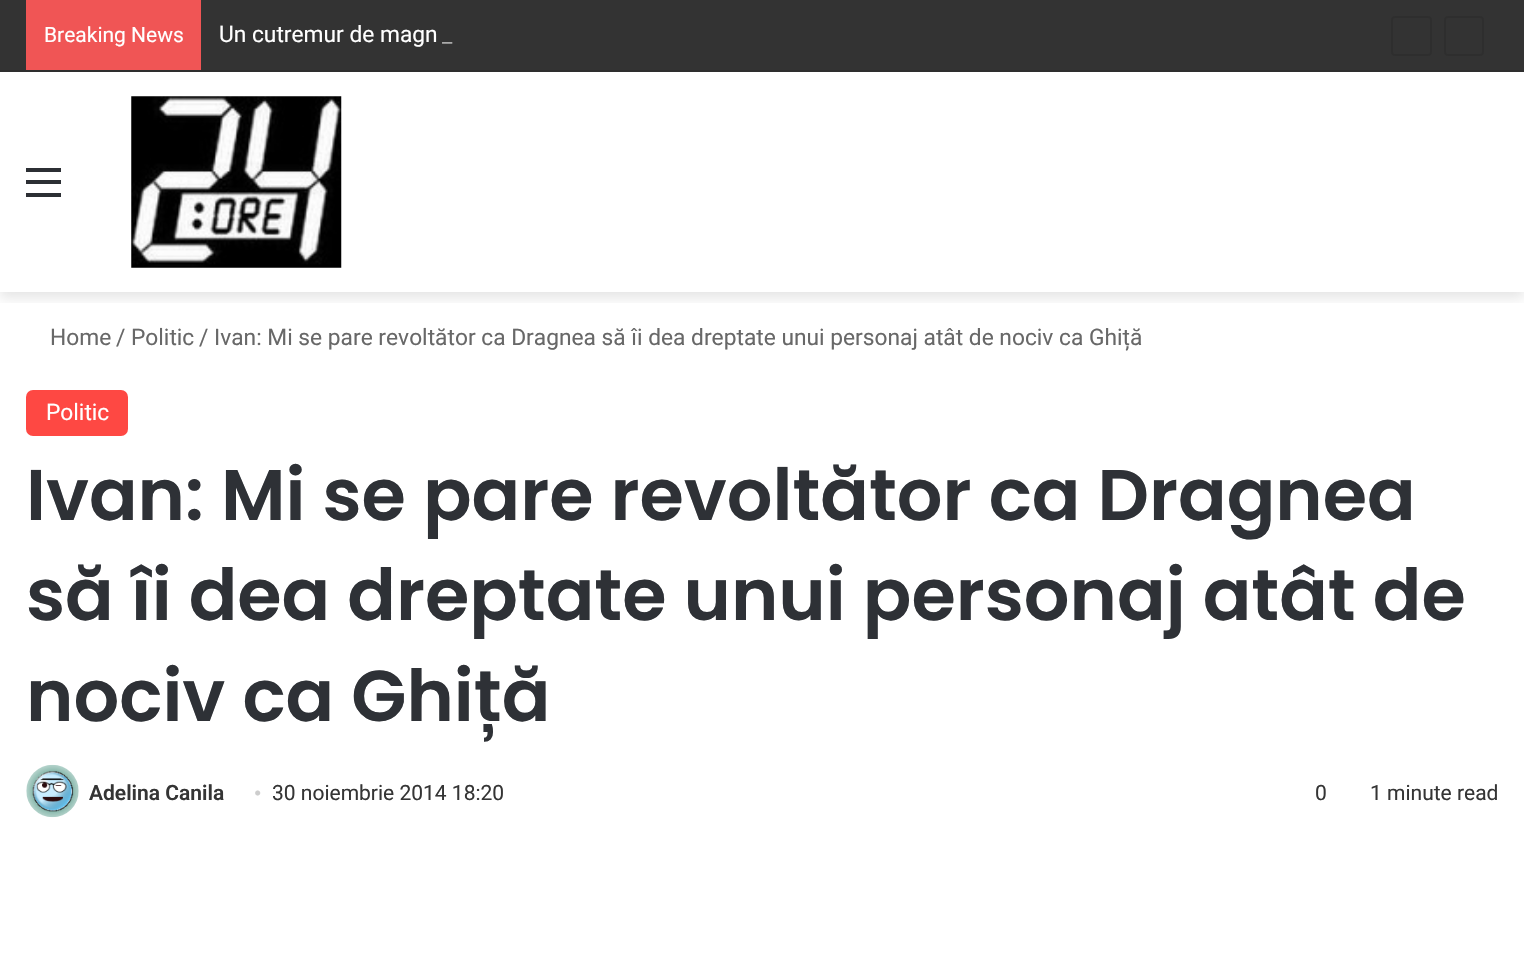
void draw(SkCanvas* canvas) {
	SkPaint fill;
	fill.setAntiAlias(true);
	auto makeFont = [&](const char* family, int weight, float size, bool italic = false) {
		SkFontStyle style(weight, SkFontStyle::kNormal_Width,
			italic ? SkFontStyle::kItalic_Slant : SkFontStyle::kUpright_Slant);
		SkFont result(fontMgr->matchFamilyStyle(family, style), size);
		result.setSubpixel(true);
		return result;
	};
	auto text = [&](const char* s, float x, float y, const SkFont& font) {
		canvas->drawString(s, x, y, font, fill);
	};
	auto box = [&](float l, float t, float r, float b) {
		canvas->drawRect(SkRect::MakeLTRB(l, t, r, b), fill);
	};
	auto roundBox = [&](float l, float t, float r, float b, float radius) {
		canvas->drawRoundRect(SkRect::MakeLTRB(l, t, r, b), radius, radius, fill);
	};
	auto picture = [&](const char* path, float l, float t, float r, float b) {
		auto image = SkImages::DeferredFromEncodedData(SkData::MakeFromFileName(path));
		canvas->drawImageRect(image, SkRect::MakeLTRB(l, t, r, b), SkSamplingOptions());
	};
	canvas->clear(0xFFFFFFFF);
	canvas->save();
	canvas->clipRect(SkRect::MakeLTRB(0, 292, 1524, 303));
	fill.setColor(0x1A000000);
	fill.setMaskFilter(SkMaskFilter::MakeBlur(kNormal_SkBlurStyle, 6));
	canvas->drawRect(SkRect::MakeLTRB(0, 77, 1524, 298), fill);
	fill.setMaskFilter(nullptr);
	canvas->restore();
	fill.setColor(0xFF333333);
	box(0, 0, 1524, 70);
	fill.setColor(0xFF2E2E2E);
	box(0, 70, 1524, 72);
	fill.setColor(0xFFF05555);
	box(26, 0, 201, 70);
	fill.setStyle(SkPaint::kStroke_Style);
	fill.setStrokeWidth(2);
	fill.setColor(0xFF2E2E2E);
	canvas->drawRoundRect(SkRect::MakeLTRB(1392, 17, 1431, 55), 3, 3, fill);
	canvas->drawRoundRect(SkRect::MakeLTRB(1445, 17, 1483, 55), 3, 3, fill);
	fill.setStyle(SkPaint::kFill_Style);
	fill.setColor(0xFF2C2F34);
	box(26, 180, 61, 184);
	box(26, 168, 61, 172);
	box(26, 193, 61, 197);
	picture("image0.png", 131, 96, 342, 268);
	fill.setColor(0xFFFE4843);
	roundBox(26, 390, 128, 436, 7);
	picture("image1.png", 26, 764, 79, 818);
	auto font1 = makeFont("Roboto", 400, 21);
	fill.setColor(0xFFFFFFFF);
	text("Breaking News", 44, 42, font1);
	auto font2 = makeFont("Roboto", 400, 22.75f);
	text("Un cutremur de magn", 219, 42, font2);
	fill.setColor(0xFFAAAAAA);
	text("_", 442, 42, font2);
	fill.setColor(0xFF686868);
	text("Home", 50, 345, font2);
	text("/", 116, 345, font2);
	text("Politic", 131, 345, font2);
	text("/", 199, 345, font2);
	text("Ivan: Mi se pare revoltător ca Dragnea să îi dea dreptate unui personaj atât de nociv ca Ghiță", 214, 345, font2);
	fill.setColor(0xFFFFFFFF);
	text("Politic", 46, 420, font2);
	auto font3 = makeFont("Poppins", 600, 71.75f);
	fill.setColor(0xFF2E3136);
	text("Ivan: Mi se pare revoltător ca Dragnea", 26, 520, font3);
	text("să îi dea dreptate unui personaj atât de", 26, 620, font3);
	text("nociv ca Ghiță", 26, 721, font3);
	auto font4 = makeFont("Roboto", 600, 21);
	fill.setColor(0xFF353535);
	text("Adelina Canila", 89, 800, font4);
	auto font5 = makeFont("Liberation Serif", 400, 21);
	fill.setColor(0xFFCDCDCD);
	text("•", 254, 800, font5);
	fill.setColor(0xFF353535);
	text("30 noiembrie 2014 18:20", 272, 800, font1);
	text("0", 1315, 800, font1);
	text("1 minute read", 1370, 800, font1);
}
